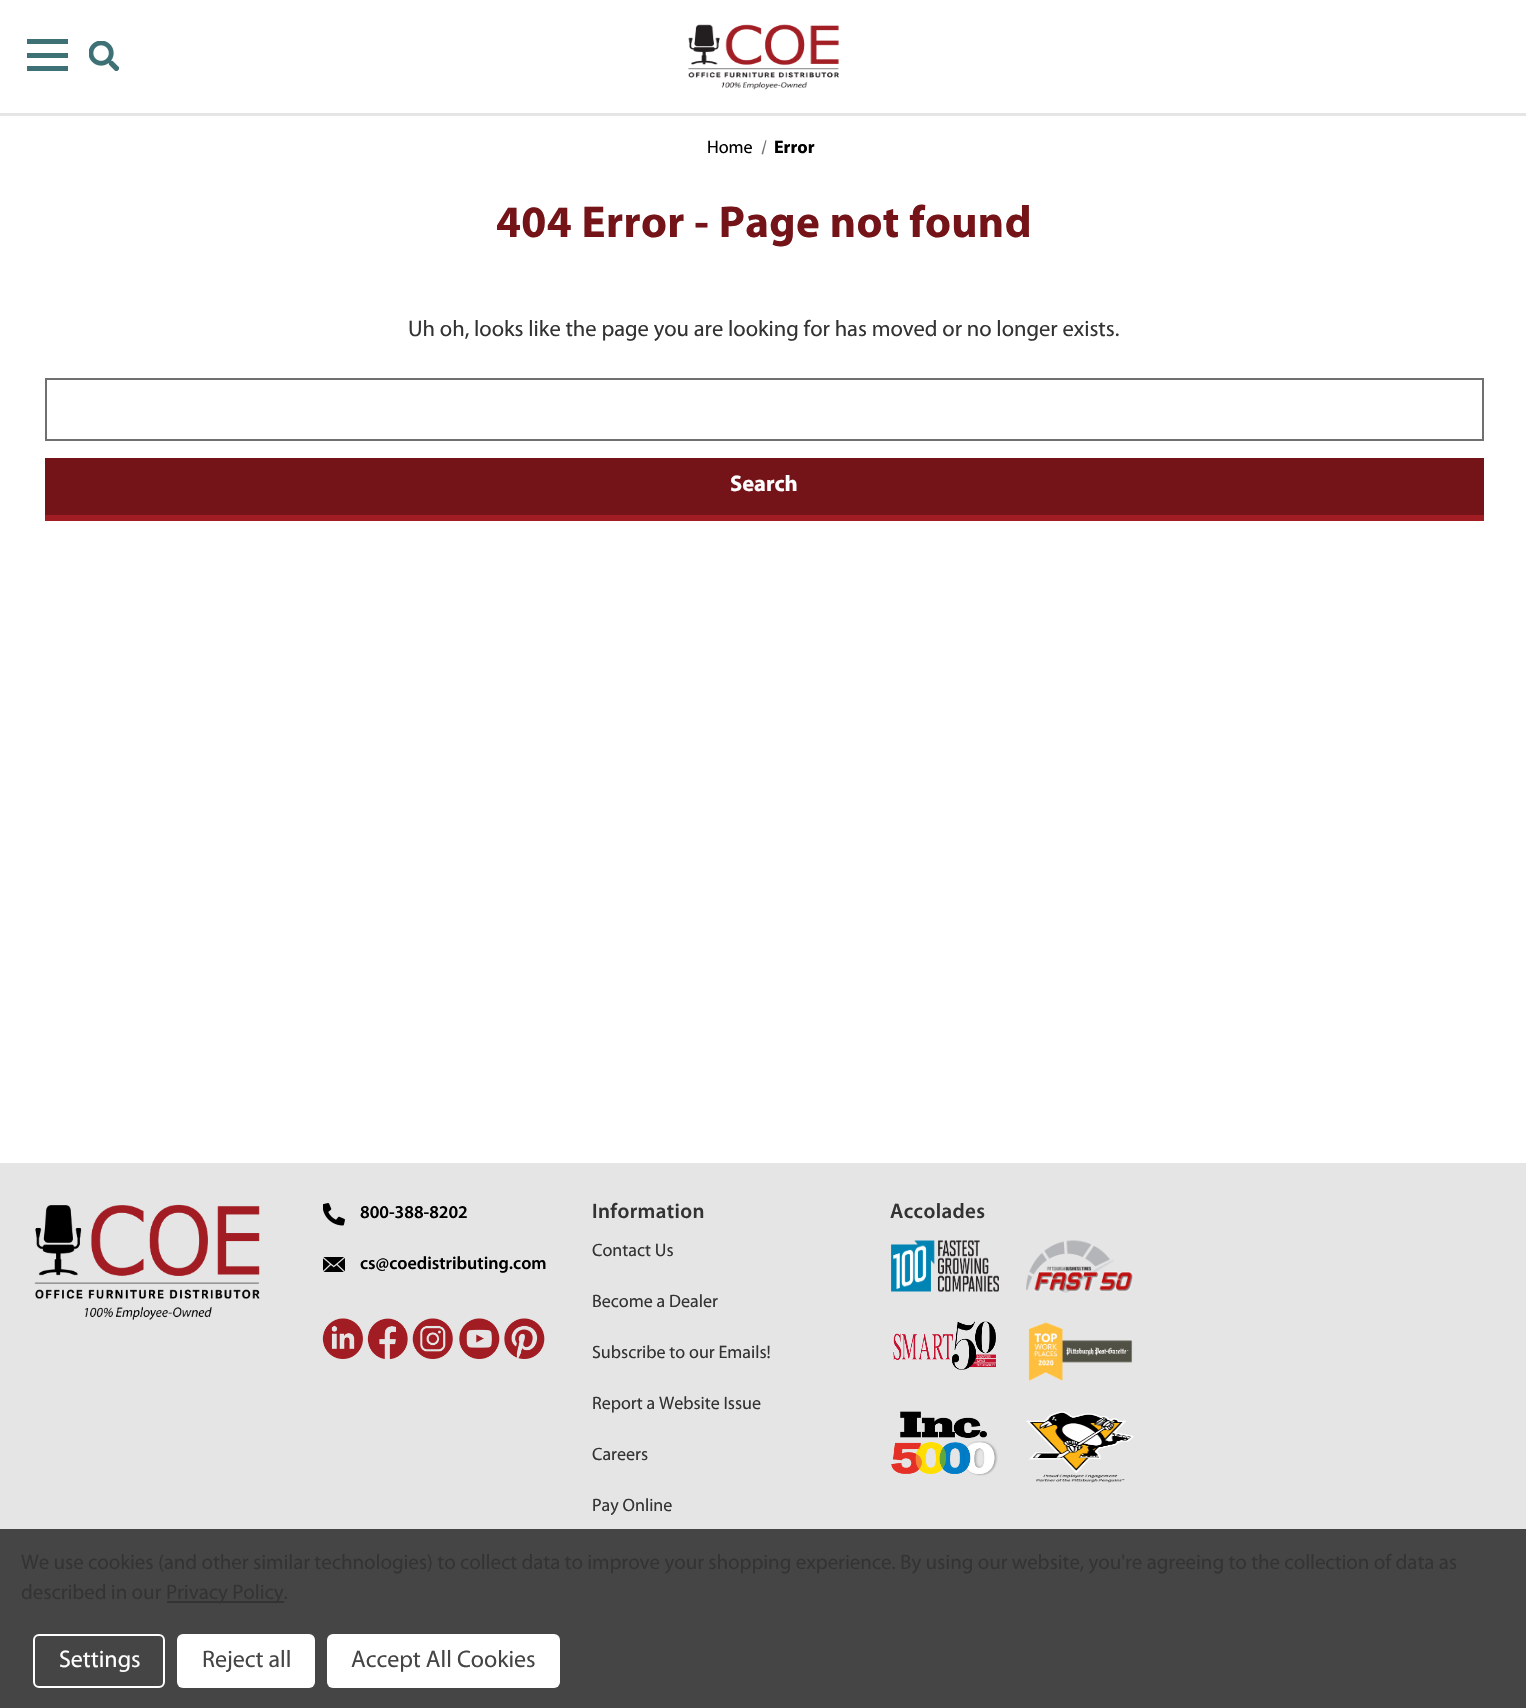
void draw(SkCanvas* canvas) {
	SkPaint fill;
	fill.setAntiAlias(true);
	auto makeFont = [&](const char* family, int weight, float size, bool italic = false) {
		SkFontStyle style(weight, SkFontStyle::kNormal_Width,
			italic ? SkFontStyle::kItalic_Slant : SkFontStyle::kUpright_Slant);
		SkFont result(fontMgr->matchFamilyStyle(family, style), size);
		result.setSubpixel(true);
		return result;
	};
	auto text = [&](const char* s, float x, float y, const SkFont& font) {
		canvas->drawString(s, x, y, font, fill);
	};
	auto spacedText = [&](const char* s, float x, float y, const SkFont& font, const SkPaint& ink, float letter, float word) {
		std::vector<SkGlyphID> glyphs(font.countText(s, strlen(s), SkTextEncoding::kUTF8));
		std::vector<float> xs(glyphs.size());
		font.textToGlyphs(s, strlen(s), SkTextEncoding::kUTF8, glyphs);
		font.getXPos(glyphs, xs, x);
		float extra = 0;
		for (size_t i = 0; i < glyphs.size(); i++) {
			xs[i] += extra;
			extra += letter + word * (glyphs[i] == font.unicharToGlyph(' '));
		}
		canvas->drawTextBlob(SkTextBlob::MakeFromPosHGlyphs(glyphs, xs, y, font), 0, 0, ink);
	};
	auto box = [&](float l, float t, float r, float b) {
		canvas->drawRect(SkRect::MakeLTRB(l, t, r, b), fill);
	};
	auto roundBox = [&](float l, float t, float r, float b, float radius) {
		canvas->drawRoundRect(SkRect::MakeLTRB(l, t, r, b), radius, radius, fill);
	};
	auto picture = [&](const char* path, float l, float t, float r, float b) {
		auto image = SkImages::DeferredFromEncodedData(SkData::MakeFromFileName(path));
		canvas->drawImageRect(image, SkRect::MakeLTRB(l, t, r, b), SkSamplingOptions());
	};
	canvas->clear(0xFFFFFFFF);
	fill.setColor(0xFF3E7175);
	box(27, 53, 68, 58);
	box(27, 39, 68, 44);
	box(27, 66, 68, 71);
	picture("image0.png", 89, 41, 119, 71);
	picture("image1.png", 688, 24, 839, 90);
	fill.setColor(0xFFE5E5E5);
	box(0, 113, 1526, 116);
	fill.setColor(0xFF757575);
	canvas->drawPath(SkPathBuilder().moveTo(765.5f, 140).lineTo(766.5f, 140.5f).lineTo(763, 154.5f).lineTo(761.5f, 154).close().detach(), fill);
	fill.setStyle(SkPaint::kStroke_Style);
	fill.setStrokeWidth(2);
	fill.setColor(0xFF707070);
	canvas->drawRect(SkRect::MakeLTRB(46, 379, 1483, 440), fill);
	fill.setStyle(SkPaint::kFill_Style);
	fill.setColor(0xFF741418);
	box(45, 458, 1484, 515);
	fill.setColor(0xFFA11D23);
	box(45, 515, 1484, 521);
	fill.setColor(0xFFE5E5E5);
	box(0, 1163, 1526, 1529);
	picture("image2.png", 34, 1204, 260, 1320);
	picture("image3.png", 323, 1203, 345, 1226);
	picture("image4.png", 323, 1257, 345, 1272);
	picture("image5.png", 322, 1318, 363, 1359);
	picture("image6.png", 367, 1318, 408, 1359);
	picture("image7.png", 412, 1318, 453, 1359);
	picture("image8.png", 459, 1318, 500, 1359);
	picture("image9.png", 504, 1318, 545, 1359);
	picture("image10.png", 891, 1240, 999, 1292);
	picture("image11.png", 1026, 1240, 1134, 1293);
	picture("image12.png", 893, 1321, 997, 1370);
	picture("image13.png", 1028, 1322, 1133, 1381);
	picture("image14.png", 891, 1411, 998, 1476);
	picture("image15.png", 1026, 1411, 1134, 1483);
	fill.setColor(0xFF454545);
	box(0, 1529, 1526, 1708);
	fill.setColor(0xFF333333);
	box(167, 1601, 284, 1603);
	fill.setStyle(SkPaint::kStroke_Style);
	fill.setColor(0xFFFFFFFF);
	canvas->drawRoundRect(SkRect::MakeLTRB(34, 1635, 164, 1687), 5, 5, fill);
	fill.setStyle(SkPaint::kFill_Style);
	roundBox(177, 1634, 315, 1688, 6);
	roundBox(327, 1634, 560, 1688, 6);
	auto font1 = makeFont("Myriad", 400, 18);
	fill.setColor(0xFF000000);
	text("Home", 707, 153, font1);
	auto font2 = makeFont("Myriad", 700, 18);
	text("Error", 774, 153, font2);
	auto font3 = makeFont("Myriad", 700, 45);
	fill.setColor(0xFF741418);
	spacedText("404 Error - Page not found", 496, 237, font3, fill, 0.4f, 0);
	auto font4 = makeFont("Myriad", 400, 22.5f);
	fill.setColor(0xFF333333);
	text("Uh oh, looks like the page you are looking for has moved or no longer exists.", 408, 336, font4);
	auto font5 = makeFont("Myriad", 700, 22.5f);
	fill.setColor(0xFFFFFFFF);
	text("Search", 730, 491, font5);
	auto font6 = makeFont("Myriad", 600, 18);
	fill.setColor(0xFF000000);
	text("800-388-8202", 360, 1218, font6);
	text("cs@coedistributing.com", 360, 1269, font6);
	auto font7 = makeFont("Myriad", 600, 21);
	fill.setColor(0xFF333333);
	spacedText("Information", 592, 1218, font7, fill, 0.4f, 0);
	text("Contact Us", 592, 1256, font1);
	text("Become a Dealer", 592, 1307, font1);
	text("Subscribe to our Emails!", 592, 1358, font1);
	text("Report a Website Issue", 592, 1409, font1);
	text("Careers", 592, 1460, font1);
	text("Pay Online", 592, 1511, font1);
	spacedText("Accolades", 890, 1218, font7, fill, 0.4f, 0);
	auto font8 = makeFont("Myriad", 400, 21);
	spacedText("We use cookies (and other similar technologies) to collect data to improve your shopping experience. By using our website, you're agreeing to the collection of data as", 21, 1569, font8, fill, -0.08f, 0);
	spacedText("described in our", 21, 1599, font8, fill, -0.08f, 0);
	spacedText("Privacy Policy.", 166, 1599, font8, fill, -0.08f, 0);
	auto font9 = makeFont("Myriad", 400, 24);
	fill.setColor(0xFFFFFFFF);
	text("Settings", 59, 1667, font9);
	fill.setColor(0xFF454545);
	text("Reject all", 202, 1667, font9);
	text("Accept All Cookies", 351, 1667, font9);
}
